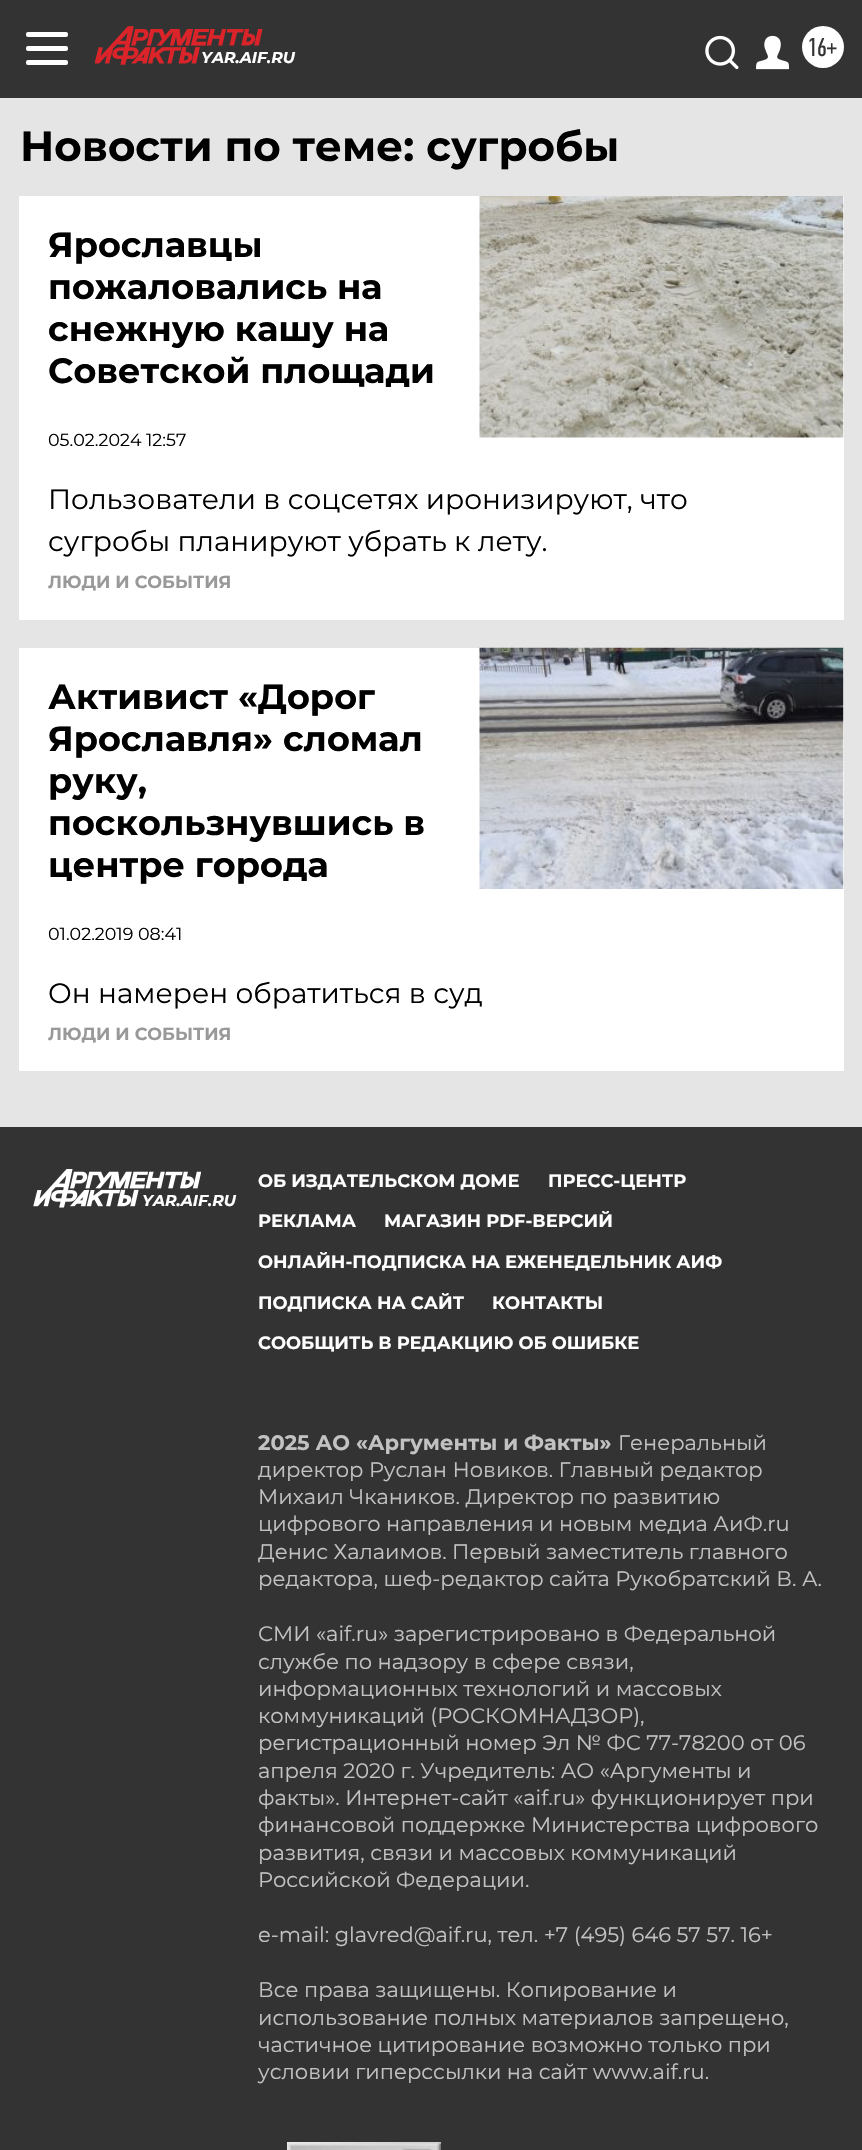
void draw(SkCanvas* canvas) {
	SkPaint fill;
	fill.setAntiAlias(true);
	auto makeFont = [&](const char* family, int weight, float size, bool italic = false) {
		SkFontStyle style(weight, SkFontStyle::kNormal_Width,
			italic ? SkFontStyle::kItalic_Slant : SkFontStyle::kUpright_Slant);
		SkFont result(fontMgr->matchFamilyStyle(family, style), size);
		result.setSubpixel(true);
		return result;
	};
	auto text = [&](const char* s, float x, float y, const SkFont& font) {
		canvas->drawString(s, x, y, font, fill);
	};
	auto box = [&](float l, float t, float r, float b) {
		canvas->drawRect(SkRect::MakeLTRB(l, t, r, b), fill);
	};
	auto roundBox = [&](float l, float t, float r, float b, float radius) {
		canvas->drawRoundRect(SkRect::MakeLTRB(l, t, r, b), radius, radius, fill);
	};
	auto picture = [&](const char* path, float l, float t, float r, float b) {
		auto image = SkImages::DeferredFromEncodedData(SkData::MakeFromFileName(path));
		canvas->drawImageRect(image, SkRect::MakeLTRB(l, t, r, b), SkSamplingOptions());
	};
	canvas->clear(0xFFE5E5E5);
	fill.setColor(0xFF333333);
	box(0, 0, 862, 98);
	fill.setColor(0xFFFFFFFF);
	roundBox(26, 32, 68, 37, 2);
	roundBox(26, 46, 68, 51, 2);
	roundBox(26, 60, 68, 65, 2);
	picture("image0.png", 95, 26, 263, 65);
	picture("image1.png", 705, 35, 739, 70);
	picture("image2.png", 756, 35, 789, 70);
	canvas->drawCircle(823, 47, 21, fill);
	box(19, 196, 844, 620);
	picture("image3.png", 479, 196, 844, 438);
	box(19, 648, 844, 1071);
	picture("image4.png", 479, 647, 844, 889);
	fill.setColor(0xFF333333);
	box(0, 1127, 862, 2150);
	picture("image5.png", 33, 1169, 201, 1208);
	picture("image6.png", 287, 2142, 441, 2150);
	auto font1 = makeFont("Montserrat", 700, 15.75f, true);
	fill.setColor(0xFFFFFFFF);
	text("YAR.AIF.RU", 201, 63, font1);
	auto font2 = makeFont("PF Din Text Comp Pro", 400, 26);
	fill.setColor(0xFF333333);
	text("16+", 807, 56, font2);
	auto font3 = makeFont("Montserrat", 700, 42);
	fill.setColor(0xFF000000);
	text("Новости по теме: сугробы", 20, 161, font3);
	auto font4 = makeFont("Montserrat", 700, 35);
	text("Ярославцы", 48, 257, font4);
	text("пожаловались на", 48, 299, font4);
	text("снежную кашу на", 48, 341, font4);
	text("Советской площади", 48, 383, font4);
	auto font5 = makeFont("Montserrat", 400, 17.5f);
	text("05.02.2024 12:57", 48, 446, font5);
	auto font6 = makeFont("Montserrat", 400, 28);
	text("Пользователи в соцсетях иронизируют, что", 48, 509, font6);
	text("сугробы планируют убрать к лету.", 48, 551, font6);
	auto font7 = makeFont("Montserrat", 700, 17.5f);
	fill.setColor(0xFF999999);
	text("ЛЮДИ И СОБЫТИЯ", 48, 588, font7);
	fill.setColor(0xFF000000);
	text("Активист «Дорог", 48, 709, font4);
	text("Ярославля» сломал", 48, 751, font4);
	text("руку,", 48, 793, font4);
	text("поскользнувшись в", 48, 835, font4);
	text("центре города", 48, 877, font4);
	text("01.02.2019 08:41", 48, 940, font5);
	text("Он намерен обратиться в суд", 48, 1003, font6);
	fill.setColor(0xFF999999);
	text("ЛЮДИ И СОБЫТИЯ", 48, 1040, font7);
	fill.setColor(0xFFFFFFFF);
	text("YAR.AIF.RU", 142, 1206, font1);
	auto font8 = makeFont("Montserrat", 700, 17.85f);
	text("ОБ ИЗДАТЕЛЬСКОМ ДОМЕ", 258, 1187, font8);
	text("ПРЕСС-ЦЕНТР", 548, 1187, font8);
	text("РЕКЛАМА", 258, 1227, font8);
	text("МАГАЗИН PDF-ВЕРСИЙ", 384, 1227, font8);
	text("ОНЛАЙН-ПОДПИСКА НА ЕЖЕНЕДЕЛЬНИК АИФ", 258, 1268, font8);
	text("ПОДПИСКА НА САЙТ", 258, 1309, font8);
	text("КОНТАКТЫ", 492, 1309, font8);
	text("СООБЩИТЬ В РЕДАКЦИЮ ОБ ОШИБКЕ", 258, 1349, font8);
	auto font9 = makeFont("Montserrat", 700, 21);
	fill.setColor(0xFFC2C2C2);
	text("2025 АО «Аргументы и Факты»", 258, 1450, font9);
	auto font10 = makeFont("Montserrat", 400, 21);
	text("Генеральный", 618, 1450, font10);
	text("директор Руслан Новиков. Главный редактор", 258, 1477, font10);
	text("Михаил Чкаников. Директор по развитию", 258, 1504, font10);
	text("цифрового направления и новым медиа АиФ.ru", 258, 1531, font10);
	text("Денис Халаимов. Первый заместитель главного", 258, 1559, font10);
	text("редактора, шеф-редактор сайта Рукобратский В. А.", 258, 1586, font10);
	text("СМИ «aif.ru» зарегистрировано в Федеральной", 258, 1641, font10);
	text("службе по надзору в сфере связи,", 258, 1669, font10);
	text("информационных технологий и массовых", 258, 1696, font10);
	text("коммуникаций (РОСКОМНАДЗОР),", 258, 1723, font10);
	text("регистрационный номер Эл № ФС 77-78200 от 06", 258, 1750, font10);
	text("апреля 2020 г. Учредитель: АО «Аргументы и", 258, 1778, font10);
	text("факты». Интернет-сайт «aif.ru» функционирует при", 258, 1805, font10);
	text("финансовой поддержке Министерства цифрового", 258, 1832, font10);
	text("развития, связи и массовых коммуникаций", 258, 1860, font10);
	text("Российской Федерации.", 258, 1887, font10);
	text("e-mail: glavred@aif.ru, тел. +7 (495) 646 57 57. 16+", 258, 1942, font10);
	text("Все права защищены. Копирование и", 258, 1997, font10);
	text("использование полных материалов запрещено,", 258, 2025, font10);
	text("частичное цитирование возможно только при", 258, 2052, font10);
	text("условии гиперссылки на сайт www.aif.ru.", 258, 2079, font10);
}
